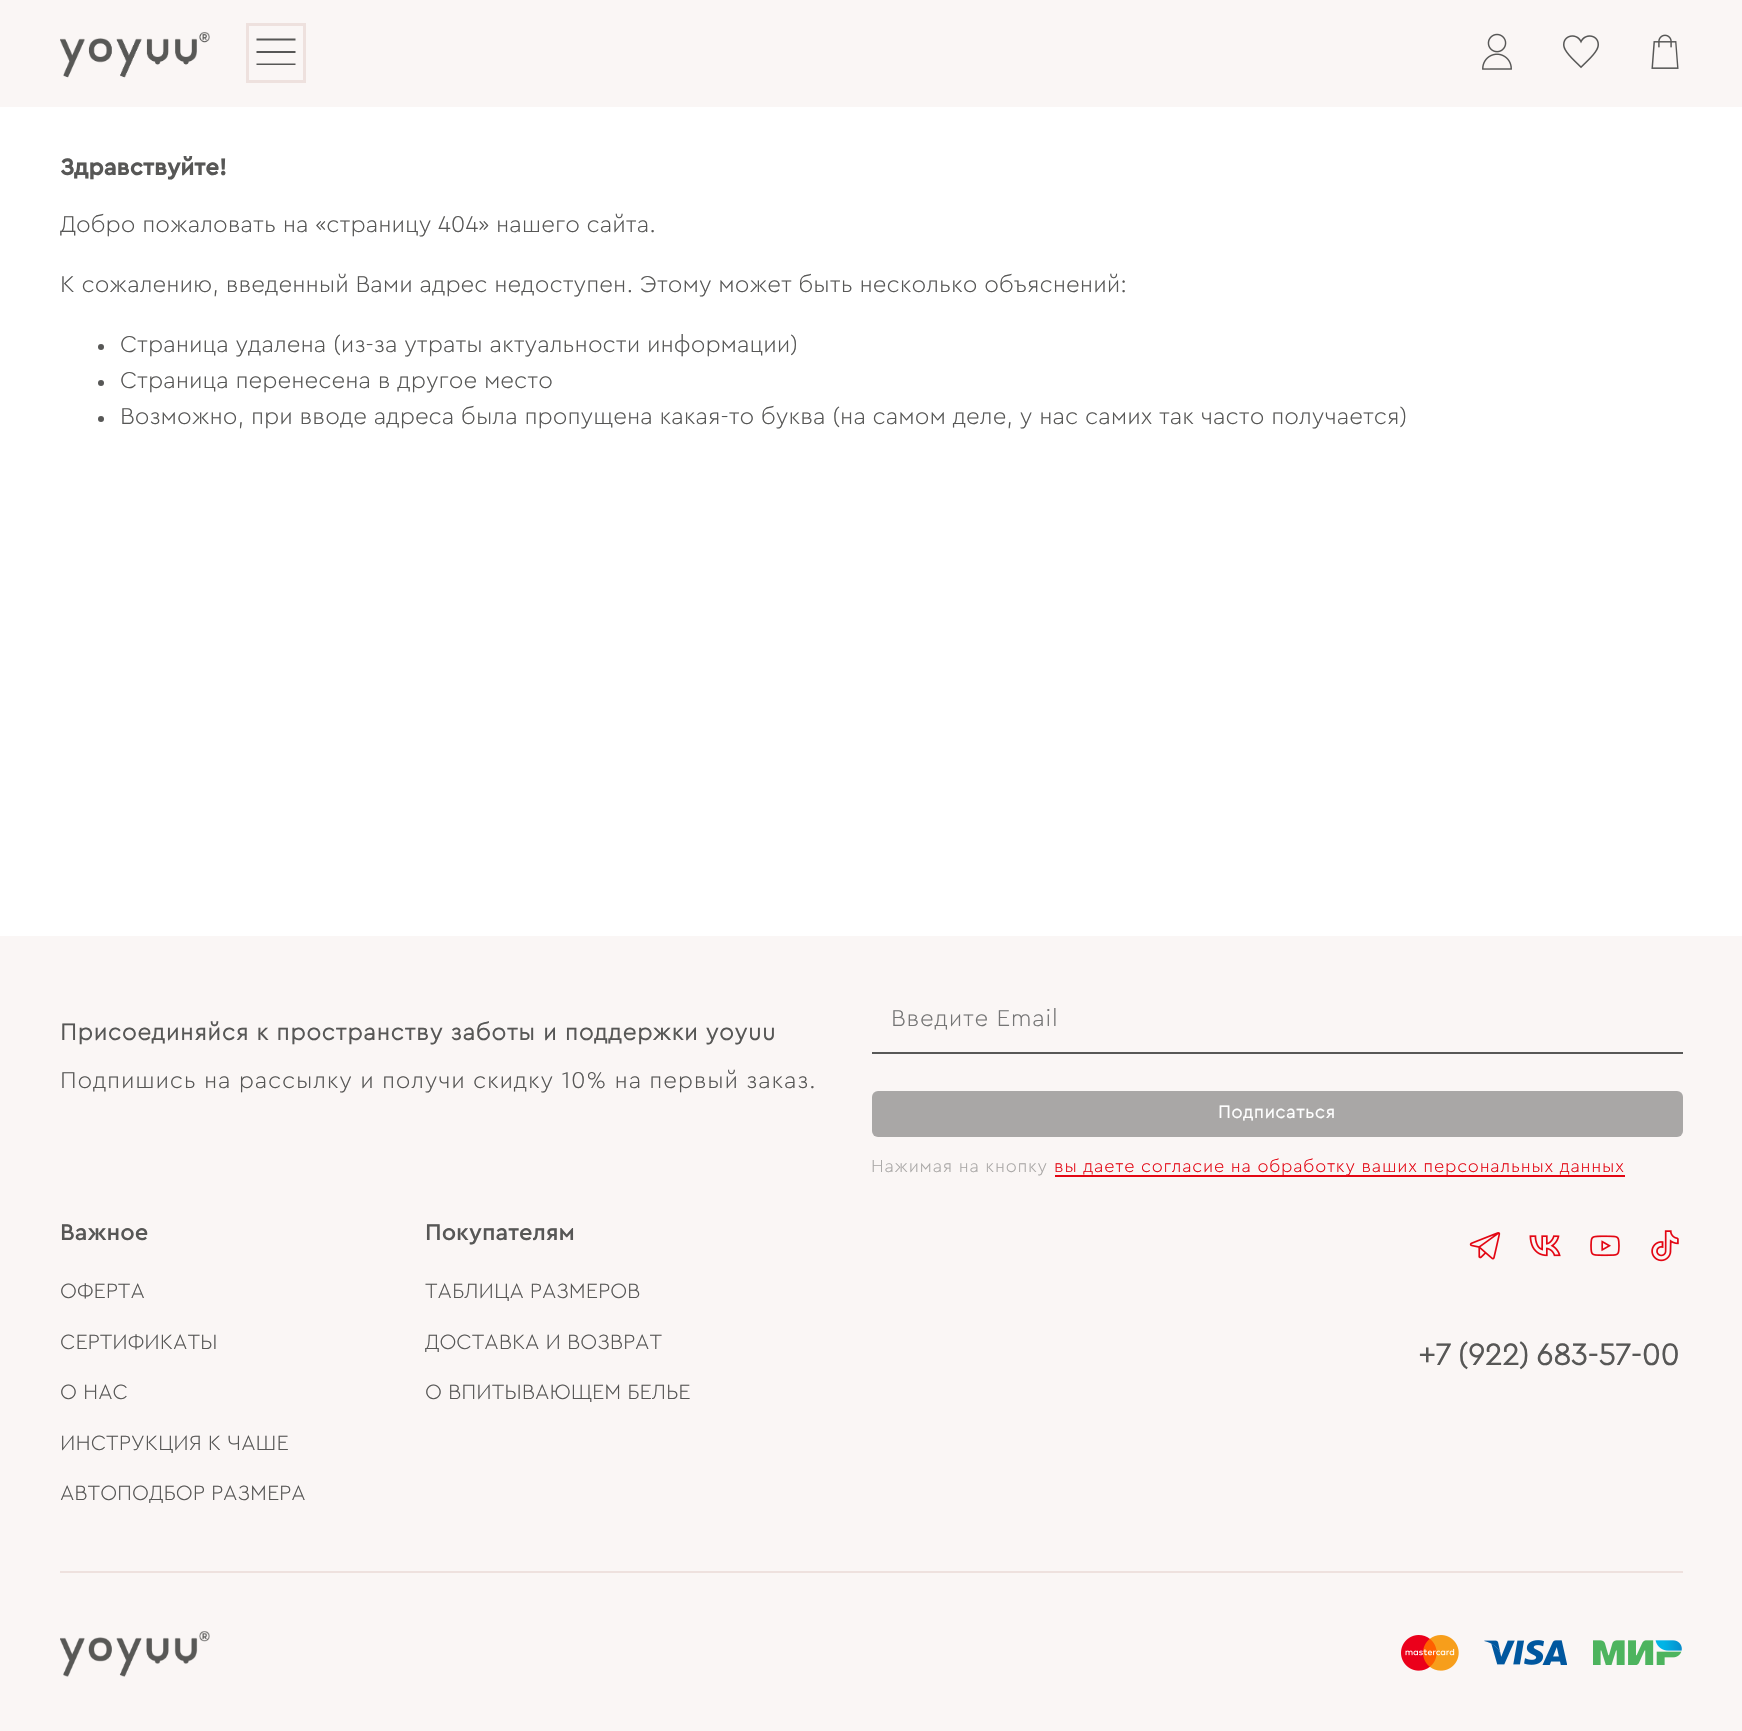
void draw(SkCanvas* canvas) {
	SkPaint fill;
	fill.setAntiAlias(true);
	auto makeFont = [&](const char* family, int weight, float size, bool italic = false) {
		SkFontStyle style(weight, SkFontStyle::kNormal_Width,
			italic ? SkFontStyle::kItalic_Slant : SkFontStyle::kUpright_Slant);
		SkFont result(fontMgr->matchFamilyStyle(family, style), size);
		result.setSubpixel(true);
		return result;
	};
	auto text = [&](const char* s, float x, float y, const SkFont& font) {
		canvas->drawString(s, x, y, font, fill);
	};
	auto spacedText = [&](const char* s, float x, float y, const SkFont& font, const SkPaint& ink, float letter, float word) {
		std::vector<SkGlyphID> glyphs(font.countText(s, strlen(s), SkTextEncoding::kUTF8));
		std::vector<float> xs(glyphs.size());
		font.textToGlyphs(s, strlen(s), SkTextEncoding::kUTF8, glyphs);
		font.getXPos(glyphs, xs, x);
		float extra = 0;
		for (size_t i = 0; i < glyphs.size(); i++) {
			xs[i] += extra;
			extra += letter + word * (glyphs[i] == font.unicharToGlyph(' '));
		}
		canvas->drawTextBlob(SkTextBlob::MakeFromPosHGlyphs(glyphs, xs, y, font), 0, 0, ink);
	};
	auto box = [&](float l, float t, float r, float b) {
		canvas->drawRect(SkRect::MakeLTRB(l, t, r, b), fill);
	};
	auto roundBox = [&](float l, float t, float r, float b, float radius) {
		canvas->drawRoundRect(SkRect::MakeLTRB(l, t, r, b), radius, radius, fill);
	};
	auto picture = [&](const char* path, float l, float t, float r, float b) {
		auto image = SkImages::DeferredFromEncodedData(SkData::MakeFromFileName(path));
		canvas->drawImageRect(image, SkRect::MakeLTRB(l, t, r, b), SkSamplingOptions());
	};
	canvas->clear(0xFFFFFFFF);
	fill.setColor(0xFFFAF6F5);
	box(0, 0, 1742, 107);
	picture("image0.png", 60, 32, 210, 78);
	fill.setStyle(SkPaint::kStroke_Style);
	fill.setStrokeWidth(3);
	fill.setColor(0xFFEEE1DE);
	canvas->drawRect(SkRect::MakeLTRB(247.5f, 24.5f, 304.5f, 81.5f), fill);
	fill.setStyle(SkPaint::kFill_Style);
	fill.setColor(0xFF575756);
	canvas->drawPath(SkPathBuilder().moveTo(256.5f, 38.5f).lineTo(295.5f, 38.5f).lineTo(295.5f, 40.5f).lineTo(256.5f, 40.5f).close().moveTo(256.5f, 63.5f).lineTo(295.5f, 63.5f).lineTo(295.5f, 65).lineTo(256.5f, 65).close().moveTo(256.5f, 51).lineTo(295.5f, 51).lineTo(295.5f, 53).lineTo(256.5f, 53).close().detach(), fill);
	picture("image1.png", 1482, 33, 1512, 70);
	picture("image2.png", 1563, 35, 1599, 69);
	picture("image3.png", 1651, 34, 1679, 69);
	canvas->drawCircle(101, 347, 3, fill);
	canvas->drawCircle(101, 383, 3, fill);
	canvas->drawCircle(101, 419, 3, fill);
	fill.setColor(0xFFFAF6F5);
	box(0, 936, 1742, 1731);
	fill.setColor(0xFF585857);
	box(872, 1052, 1683, 1054);
	fill.setColor(0xFFA9A7A6);
	roundBox(872, 1091, 1683, 1137, 6);
	fill.setColor(0xFFE30613);
	box(1055, 1175, 1625, 1177);
	picture("image4.png", 1469, 1232, 1501, 1260);
	picture("image5.png", 1529, 1235, 1561, 1257);
	picture("image6.png", 1590, 1235, 1620, 1257);
	picture("image7.png", 1651, 1230, 1679, 1262);
	fill.setColor(0xFFEEE1DE);
	box(60, 1571, 1683, 1573);
	picture("image8.png", 60, 1631, 210, 1677);
	picture("image9.png", 1401, 1635, 1459, 1671);
	picture("image10.png", 1484, 1640, 1567, 1665);
	picture("image11.png", 1593, 1640, 1682, 1665);
	auto font1 = makeFont("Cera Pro", 700, 24);
	fill.setColor(0xFF575756);
	text("Здравствуйте!", 60, 175, font1);
	auto font2 = makeFont("Cera Pro", 300, 24);
	text("Добро пожаловать на «страницу 404» нашего сайта.", 60, 232, font2);
	text("К сожалению, введенный Вами адрес недоступен. Этому может быть несколько объяснений:", 60, 292, font2);
	text("Страница удалена (из-за утраты актуальности информации)", 120, 352, font2);
	text("Страница перенесена в другое место", 120, 388, font2);
	text("Возможно, при вводе адреса была пропущена какая-то буква (на самом деле, у нас самих так часто получается)", 120, 424, font2);
	auto font3 = makeFont("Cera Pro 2", 700, 24);
	spacedText("Присоединяйся к пространству заботы и поддержки yoyuu", 60, 1040, font3, fill, 0.75f, 0);
	spacedText("Подпишись на рассылку и получи скидку 10% на первый заказ.", 60, 1088, font2, fill, 0.75f, 0);
	fill.setColor(0xFF757575);
	spacedText("Введите Email", 891, 1026, font2, fill, 0.75f, 0);
	auto font4 = makeFont("Cera Pro 2", 700, 18);
	fill.setColor(0xFFFFFFFF);
	spacedText("Подписаться", 1218, 1118, font4, fill, 0.75f, 0);
	auto font5 = makeFont("Cera Pro", 300, 18);
	fill.setColor(0xFFA9A7A6);
	spacedText("Нажимая на кнопку", 871, 1172, font5, fill, 0.75f, 0);
	fill.setColor(0xFFE30613);
	spacedText("вы даете согласие на обработку ваших персональных данных", 1054, 1172, font5, fill, 0.75f, 0);
	auto font6 = makeFont("Cera Pro", 500, 23.75f);
	fill.setColor(0xFF575756);
	text("Важное", 60, 1240, font6);
	auto font7 = makeFont("Cera Pro", 300, 21.6f);
	text("ОФЕРТА", 60, 1298, font7);
	text("СЕРТИФИКАТЫ", 60, 1349, font7);
	text("О НАС", 60, 1399, font7);
	text("ИНСТРУКЦИЯ К ЧАШЕ", 60, 1450, font7);
	text("АВТОПОДБОР РАЗМЕРА", 60, 1500, font7);
	text("Покупателям", 425, 1240, font6);
	text("ТАБЛИЦА РАЗМЕРОВ", 425, 1298, font7);
	text("ДОСТАВКА И ВОЗВРАТ", 425, 1349, font7);
	text("О ВПИТЫВАЮЩЕМ БЕЛЬЕ", 425, 1399, font7);
	auto font8 = makeFont("Cera Pro 2", 700, 31.25f);
	spacedText("+7 (922) 683-57-00", 1418, 1365, font8, fill, 0, -2);
}
